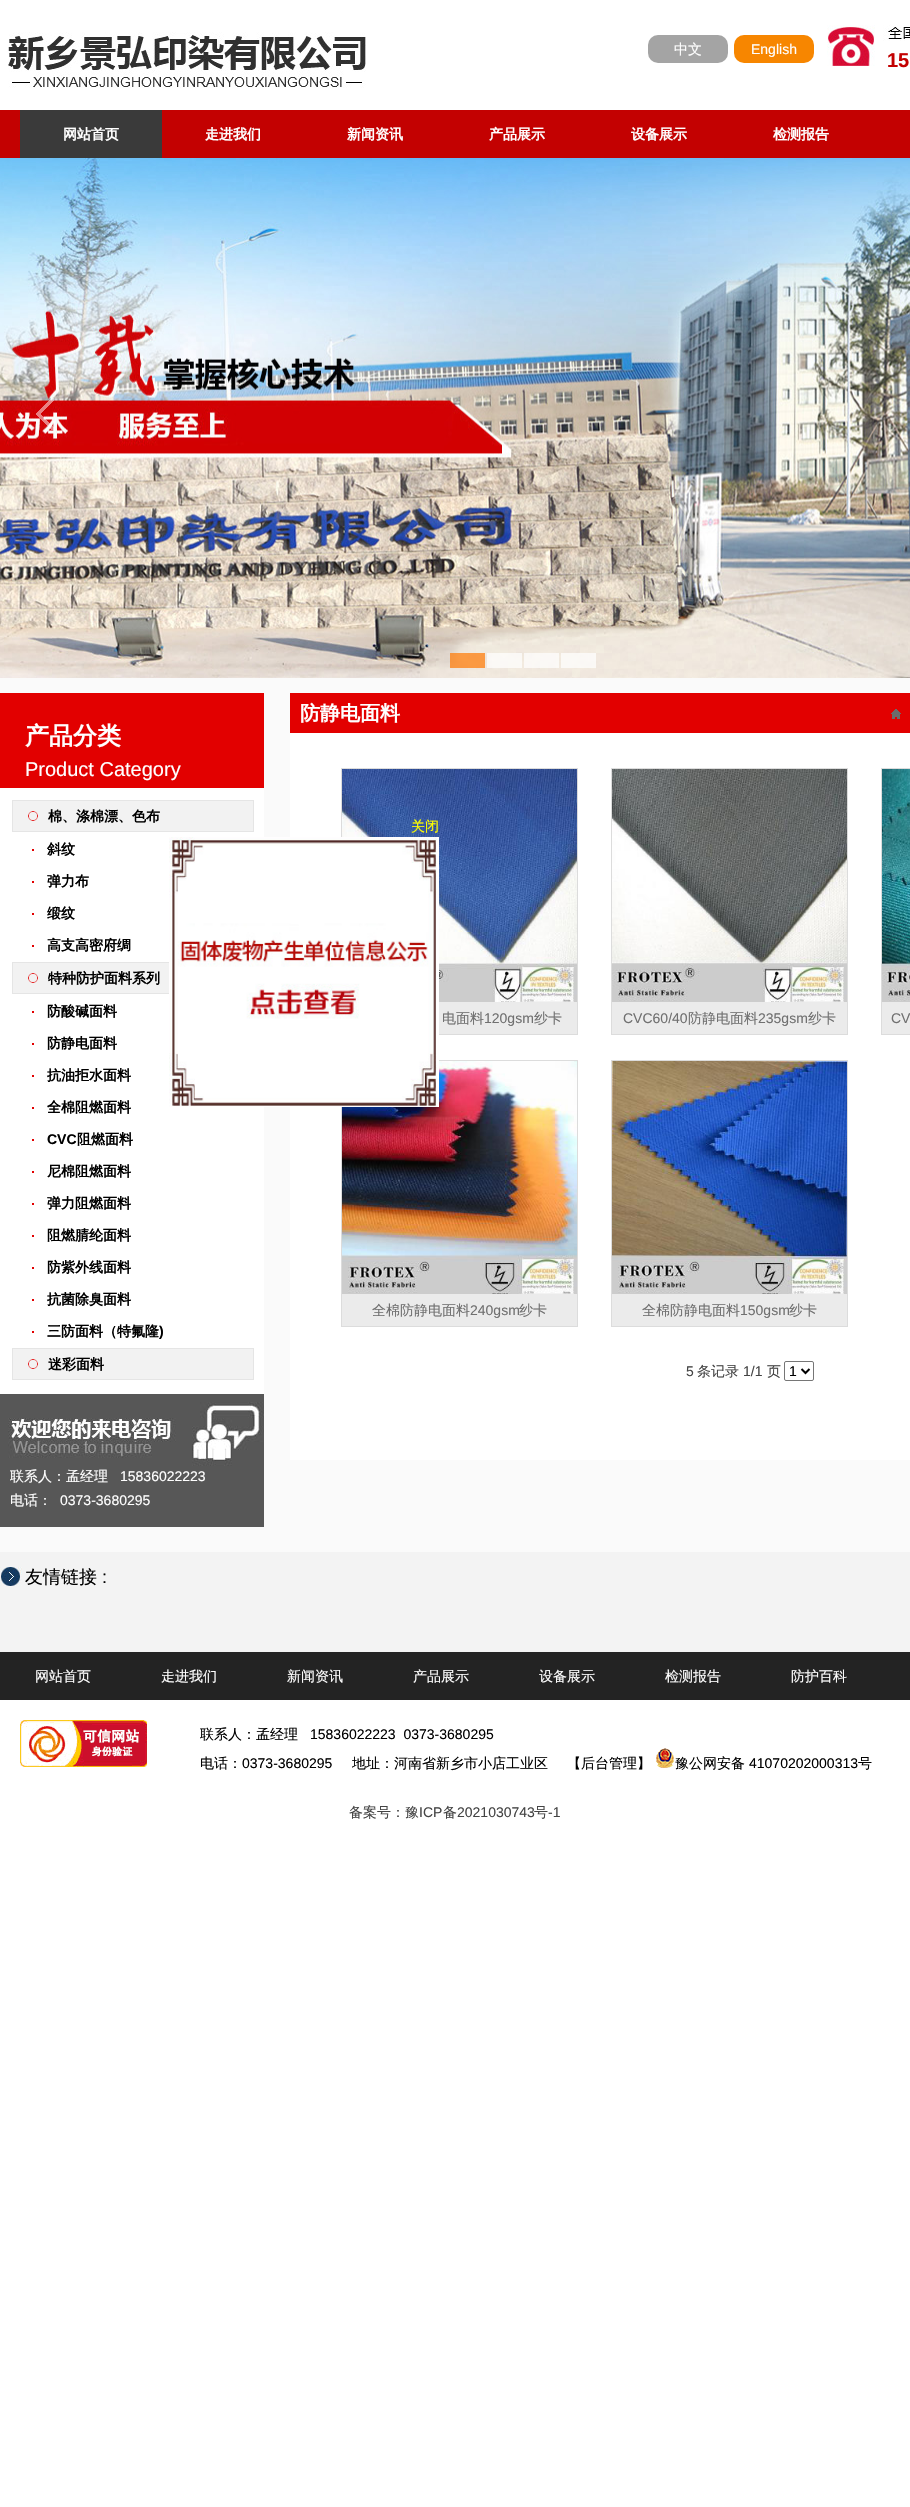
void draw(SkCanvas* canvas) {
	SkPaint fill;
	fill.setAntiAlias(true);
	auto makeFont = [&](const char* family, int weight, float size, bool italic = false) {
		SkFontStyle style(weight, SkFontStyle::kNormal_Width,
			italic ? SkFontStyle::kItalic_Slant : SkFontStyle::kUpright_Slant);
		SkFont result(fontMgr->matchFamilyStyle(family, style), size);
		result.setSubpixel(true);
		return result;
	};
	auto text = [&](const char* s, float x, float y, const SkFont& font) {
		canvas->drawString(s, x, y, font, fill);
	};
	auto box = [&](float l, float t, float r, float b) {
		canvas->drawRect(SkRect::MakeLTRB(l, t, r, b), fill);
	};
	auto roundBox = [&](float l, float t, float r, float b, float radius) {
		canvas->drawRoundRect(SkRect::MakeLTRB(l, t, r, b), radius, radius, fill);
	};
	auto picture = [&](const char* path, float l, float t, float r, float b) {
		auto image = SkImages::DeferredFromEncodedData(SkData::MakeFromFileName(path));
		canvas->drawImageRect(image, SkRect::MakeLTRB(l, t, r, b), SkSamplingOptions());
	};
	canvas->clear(0xFFFFFFFF);
	picture("image0.png", 8, 32, 366, 88);
	fill.setColor(0xFFA4A4A4);
	roundBox(648, 35, 728, 63, 10);
	fill.setColor(0xFFF78600);
	roundBox(734, 35, 814, 63, 10);
	picture("image1.png", 827, 25, 910, 66);
	fill.setColor(0xFFC30101);
	box(0, 110, 910, 158);
	fill.setColor(0xFF3A3A3A);
	box(20, 110, 162, 158);
	picture("image2.png", 0, 158, 910, 678);
	picture("image3.png", 36, 398, 54, 430);
	fill.setColor(0xB3FF7700);
	box(450, 653, 485, 668);
	fill.setColor(0xB3FFFFFF);
	box(487, 653, 522, 668);
	box(524, 653, 559, 668);
	box(561, 653, 596, 668);
	fill.setColor(0xFFFAFAFA);
	box(0, 678, 910, 1552);
	fill.setColor(0xFFE20000);
	box(0, 693, 264, 788);
	fill.setColor(0xFFFFFFFF);
	box(0, 788, 264, 1394);
	fill.setColor(0xFFF2F2F2);
	box(13, 801, 253, 831);
	picture("image4.png", 28, 811, 38, 821);
	fill.setStyle(SkPaint::kStroke_Style);
	fill.setStrokeWidth(1);
	fill.setColor(0xFFE5E5E5);
	canvas->drawRect(SkRect::MakeLTRB(12.5f, 800.5f, 253.5f, 831.5f), fill);
	fill.setStyle(SkPaint::kFill_Style);
	fill.setColor(0xFFE20000);
	box(32, 849, 34, 851);
	box(32, 881, 34, 883);
	box(32, 913, 34, 915);
	box(32, 945, 34, 947);
	fill.setColor(0xFFF2F2F2);
	box(13, 963, 169, 993);
	picture("image4.png", 28, 973, 38, 983);
	fill.setStyle(SkPaint::kStroke_Style);
	fill.setColor(0xFFE5E5E5);
	canvas->drawRect(SkRect::MakeLTRB(12.5f, 962.5f, 253.5f, 993.5f), fill);
	fill.setStyle(SkPaint::kFill_Style);
	fill.setColor(0xFFE20000);
	box(32, 1011, 34, 1013);
	box(32, 1043, 34, 1045);
	box(32, 1075, 34, 1077);
	box(32, 1107, 34, 1109);
	box(32, 1139, 34, 1141);
	box(32, 1171, 34, 1173);
	box(32, 1203, 34, 1205);
	box(32, 1235, 34, 1237);
	box(32, 1267, 34, 1269);
	box(32, 1299, 34, 1301);
	box(32, 1331, 34, 1333);
	fill.setColor(0xFFF2F2F2);
	box(13, 1349, 253, 1379);
	picture("image4.png", 28, 1359, 38, 1369);
	fill.setStyle(SkPaint::kStroke_Style);
	fill.setColor(0xFFE5E5E5);
	canvas->drawRect(SkRect::MakeLTRB(12.5f, 1348.5f, 253.5f, 1379.5f), fill);
	fill.setStyle(SkPaint::kFill_Style);
	fill.setColor(0xFF575757);
	box(0, 1394, 264, 1527);
	picture("image5.png", 8, 1402, 264, 1466);
	fill.setColor(0xFFFFFFFF);
	box(290, 733, 910, 1460);
	fill.setColor(0xFFE20000);
	box(290, 693, 910, 733);
	picture("image6.png", 891, 709, 901, 719);
	fill.setStyle(SkPaint::kStroke_Style);
	fill.setColor(0xFFDCDCDC);
	canvas->drawRect(SkRect::MakeLTRB(341.5f, 768.5f, 577.5f, 1034.5f), fill);
	picture("image7.png", 342, 769, 577, 1002);
	fill.setStyle(SkPaint::kFill_Style);
	fill.setColor(0xFFEBEBEB);
	box(439, 1002, 577, 1034);
	fill.setStyle(SkPaint::kStroke_Style);
	fill.setColor(0xFFDCDCDC);
	canvas->drawRect(SkRect::MakeLTRB(611.5f, 768.5f, 847.5f, 1034.5f), fill);
	picture("image8.png", 612, 769, 847, 1002);
	fill.setStyle(SkPaint::kFill_Style);
	fill.setColor(0xFFEBEBEB);
	box(612, 1002, 847, 1034);
	fill.setStyle(SkPaint::kStroke_Style);
	fill.setColor(0xFFDCDCDC);
	canvas->drawRect(SkRect::MakeLTRB(881.5f, 768.5f, 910.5f, 1034.5f), fill);
	picture("image9.png", 882, 769, 910, 1002);
	fill.setStyle(SkPaint::kFill_Style);
	fill.setColor(0xFFEBEBEB);
	box(882, 1002, 910, 1034);
	fill.setStyle(SkPaint::kStroke_Style);
	fill.setColor(0xFFDCDCDC);
	canvas->drawRect(SkRect::MakeLTRB(341.5f, 1060.5f, 577.5f, 1326.5f), fill);
	picture("image10.png", 342, 1061, 577, 1294);
	fill.setStyle(SkPaint::kFill_Style);
	fill.setColor(0xFFEBEBEB);
	box(342, 1294, 577, 1326);
	fill.setStyle(SkPaint::kStroke_Style);
	fill.setColor(0xFFDCDCDC);
	canvas->drawRect(SkRect::MakeLTRB(611.5f, 1060.5f, 847.5f, 1326.5f), fill);
	picture("image11.png", 612, 1061, 847, 1294);
	fill.setStyle(SkPaint::kFill_Style);
	fill.setColor(0xFFEBEBEB);
	box(612, 1294, 847, 1326);
	fill.setStyle(SkPaint::kStroke_Style);
	fill.setColor(0xFF767676);
	canvas->drawRoundRect(SkRect::MakeLTRB(784.5f, 1361.5f, 813.5f, 1380.5f), 1.5f, 1.5f, fill);
	fill.setStrokeWidth(2);
	fill.setColor(0xFF000000);
	canvas->drawPath(SkPathBuilder().moveTo(801.5f, 1369).lineTo(805.5f, 1373).lineTo(809.5f, 1369).detach(), fill);
	picture("image12.png", 169, 837, 439, 1107);
	fill.setStyle(SkPaint::kFill_Style);
	fill.setColor(0xFFF3F3F3);
	box(0, 1552, 910, 1652);
	picture("image13.png", 0, 1567, 22, 1586);
	fill.setColor(0xFF232323);
	box(0, 1652, 910, 1700);
	picture("image14.png", 20, 1720, 147, 1767);
	picture("image15.png", 656, 1748, 674, 1768);
	auto font1 = makeFont("WenQuanYi Zen Hei", 500, 14);
	fill.setColor(0xFFFFFFFF);
	text("中文", 674, 54, font1);
	auto font2 = makeFont("Liberation Sans", 400, 14);
	text("English", 751, 54, font2);
	auto font3 = makeFont("Liberation Sans", 700, 20);
	fill.setColor(0xFFC30101);
	text("15", 887, 67, font3);
	auto font4 = makeFont("WenQuanYi Zen Hei", 700, 14);
	fill.setColor(0xFFFFFFFF);
	text("网站首页", 63, 139, font4);
	text("走进我们", 205, 139, font4);
	text("新闻资讯", 347, 139, font4);
	text("产品展示", 489, 139, font4);
	text("设备展示", 631, 139, font4);
	text("检测报告", 773, 139, font4);
	auto font5 = makeFont("WenQuanYi Zen Hei", 700, 24);
	text("产品分类", 25, 744, font5);
	auto font6 = makeFont("Liberation Sans", 400, 20);
	text("Product Category", 25, 776, font6);
	fill.setColor(0xFF000000);
	text("棉、涤棉漂、色布", 48, 821, font4);
	text("斜纹", 47, 854, font4);
	text("弹力布", 47, 886, font4);
	text("缎纹", 47, 918, font4);
	text("高支高密府绸", 47, 950, font4);
	text("特种防护面料系列", 48, 983, font4);
	text("防酸碱面料", 47, 1016, font4);
	text("防静电面料", 47, 1048, font4);
	text("抗油拒水面料", 47, 1080, font4);
	text("全棉阻燃面料", 47, 1112, font4);
	auto font7 = makeFont("Liberation Sans", 700, 14);
	text("CVC", 47, 1144, font7);
	text("阻燃面料", 77, 1144, font4);
	text("尼棉阻燃面料", 47, 1176, font4);
	text("弹力阻燃面料", 47, 1208, font4);
	text("阻燃腈纶面料", 47, 1240, font4);
	text("防紫外线面料", 47, 1272, font4);
	text("抗菌除臭面料", 47, 1304, font4);
	text("三防面料（特氟隆", 47, 1336, font4);
	text(")", 159, 1336, font7);
	text("迷彩面料", 48, 1369, font4);
	fill.setColor(0xFFFFFFFF);
	text("联系人：孟经理", 10, 1481, font1);
	text("15836022223", 120, 1481, font2);
	text("电话：", 10, 1505, font1);
	text("0373-3680295", 60, 1505, font2);
	auto font8 = makeFont("WenQuanYi Zen Hei", 700, 20);
	text("防静电面料", 300, 720, font8);
	fill.setColor(0xFF707070);
	text("电面料", 442, 1023, font1);
	text("120gsm", 484, 1023, font2);
	text("纱卡", 534, 1023, font1);
	text("CVC60/40", 623, 1023, font2);
	text("防静电面料", 688, 1023, font1);
	text("235gsm", 758, 1023, font2);
	text("纱卡", 808, 1023, font1);
	text("CV", 891, 1023, font2);
	text("全棉防静电面料", 372, 1315, font1);
	text("240gsm", 470, 1315, font2);
	text("纱卡", 519, 1315, font1);
	text("全棉防静电面料", 642, 1315, font1);
	text("150gsm", 740, 1315, font2);
	text("纱卡", 789, 1315, font1);
	fill.setColor(0xFF444444);
	text("5", 686, 1376, font2);
	text("条记录", 697, 1376, font1);
	text("1/1", 743, 1376, font2);
	text("页", 767, 1376, font1);
	fill.setColor(0xFF000000);
	text("1", 789, 1376, font2);
	fill.setColor(0xFFFFFF00);
	text("关闭", 411, 831, font1);
	auto font9 = makeFont("WenQuanYi Zen Hei", 500, 18);
	fill.setColor(0xFF000000);
	text("友情链接", 25, 1583, font9);
	auto font10 = makeFont("Liberation Sans", 400, 18);
	text(":", 102, 1583, font10);
	fill.setColor(0xFFFFFFFF);
	text("网站首页", 35, 1681, font1);
	text("走进我们", 161, 1681, font1);
	text("新闻资讯", 287, 1681, font1);
	text("产品展示", 413, 1681, font1);
	text("设备展示", 539, 1681, font1);
	text("检测报告", 665, 1681, font1);
	text("防护百科", 791, 1681, font1);
	fill.setColor(0xFF000000);
	text("联系人：孟经理", 200, 1739, font1);
	text("15836022223  0373-3680295", 310, 1739, font2);
	text("电话：", 200, 1768, font1);
	text("0373-3680295", 242, 1768, font2);
	text("地址：河南省新乡市小店工业区", 352, 1768, font1);
	text("【后台管理】", 567, 1768, font1);
	text("豫公网安备", 675, 1768, font1);
	text("41070202000313", 749, 1768, font2);
	text("号", 858, 1768, font1);
	fill.setColor(0xFF444444);
	text("备案号：豫", 349, 1817, font1);
	text("ICP", 419, 1817, font2);
	text("备", 443, 1817, font1);
	text("2021030743", 457, 1817, font2);
	text("号", 534, 1817, font1);
	text("-1", 548, 1817, font2);
}
